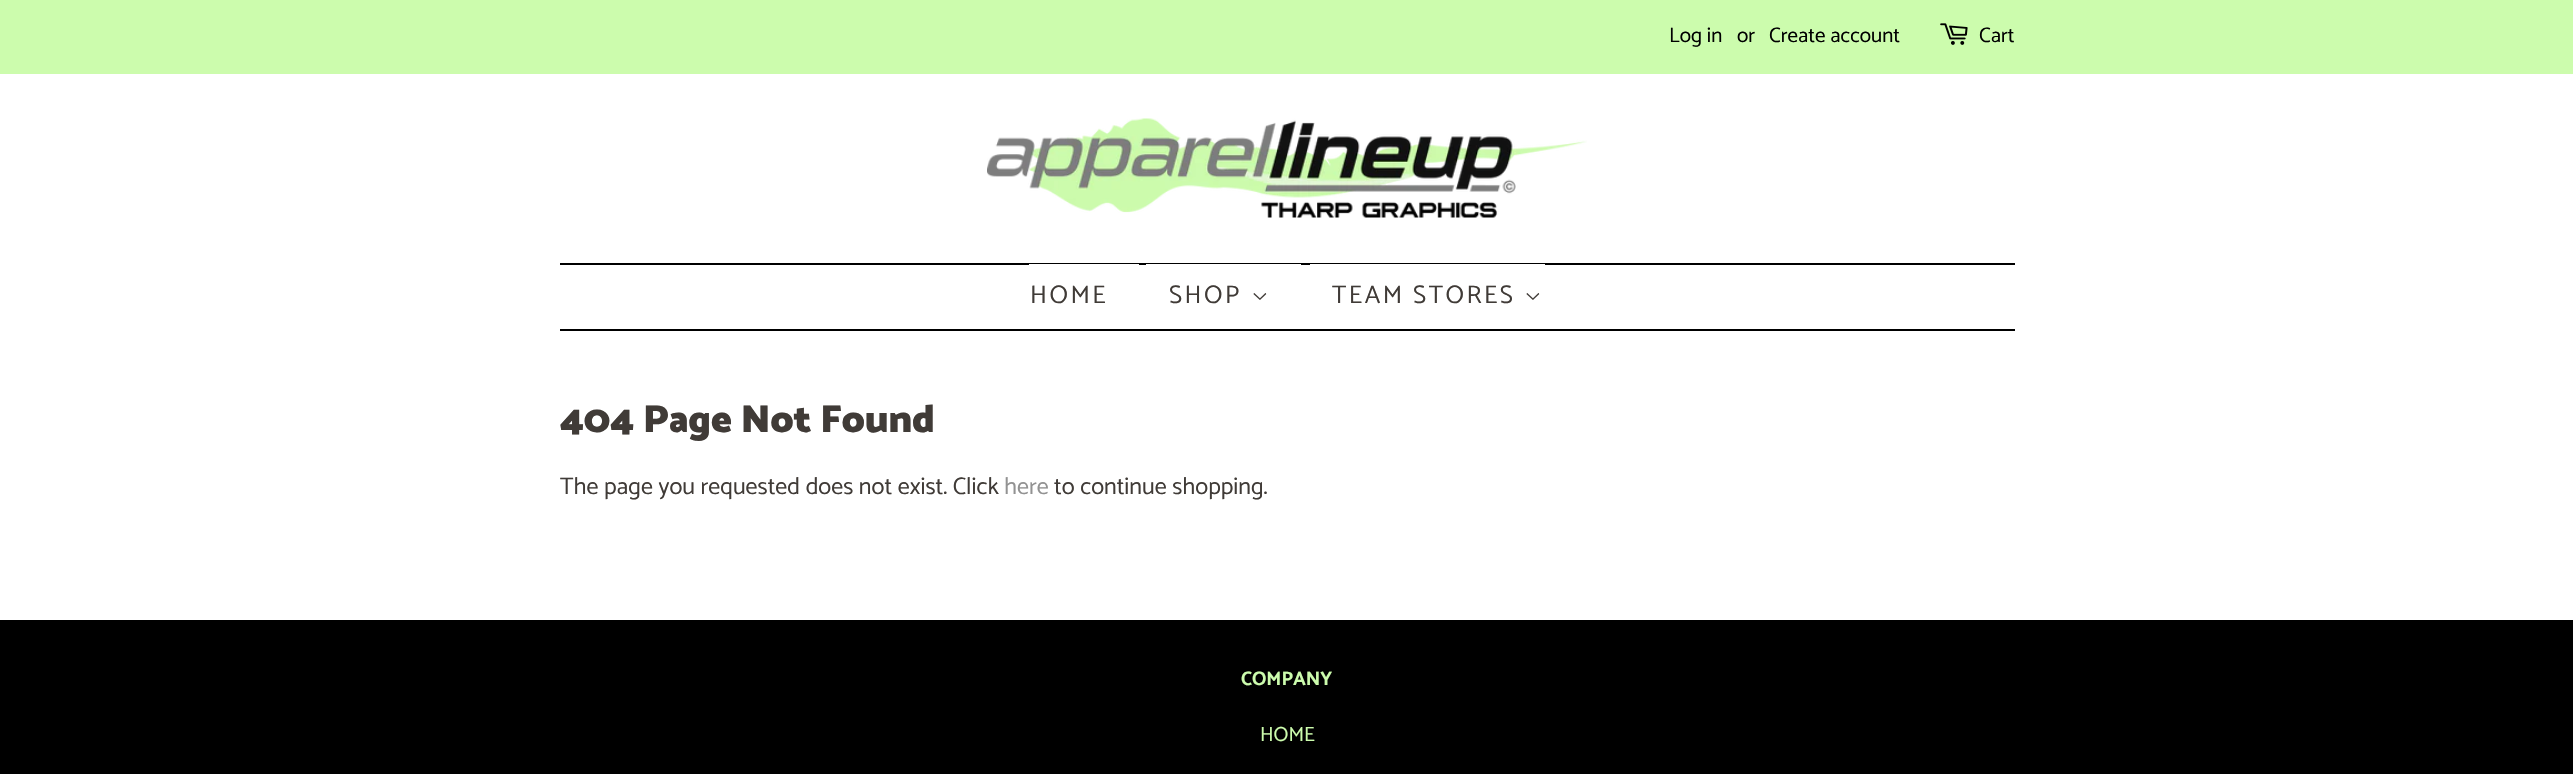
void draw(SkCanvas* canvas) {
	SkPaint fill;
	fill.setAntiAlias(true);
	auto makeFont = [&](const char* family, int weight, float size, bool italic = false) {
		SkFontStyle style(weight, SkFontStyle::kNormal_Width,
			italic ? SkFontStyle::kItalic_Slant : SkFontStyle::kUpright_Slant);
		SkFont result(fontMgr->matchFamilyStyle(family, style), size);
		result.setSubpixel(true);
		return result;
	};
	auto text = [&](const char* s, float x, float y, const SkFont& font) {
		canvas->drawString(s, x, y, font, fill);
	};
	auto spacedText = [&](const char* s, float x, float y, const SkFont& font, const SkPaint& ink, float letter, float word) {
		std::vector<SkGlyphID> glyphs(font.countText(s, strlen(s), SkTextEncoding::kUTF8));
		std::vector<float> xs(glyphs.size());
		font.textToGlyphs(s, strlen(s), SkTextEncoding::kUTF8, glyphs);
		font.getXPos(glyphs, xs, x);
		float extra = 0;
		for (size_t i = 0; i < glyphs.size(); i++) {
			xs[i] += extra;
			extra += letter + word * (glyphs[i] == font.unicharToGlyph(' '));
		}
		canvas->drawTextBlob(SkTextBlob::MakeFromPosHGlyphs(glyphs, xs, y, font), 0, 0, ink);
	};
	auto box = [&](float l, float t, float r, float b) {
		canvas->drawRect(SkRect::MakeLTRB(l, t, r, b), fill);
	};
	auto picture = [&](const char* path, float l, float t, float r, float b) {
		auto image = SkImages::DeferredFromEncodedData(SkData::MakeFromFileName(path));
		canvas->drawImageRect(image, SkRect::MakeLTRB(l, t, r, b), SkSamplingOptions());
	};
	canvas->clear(0xFFFFFFFF);
	fill.setColor(0xFFCCFCAD);
	box(0, 0, 2573, 74);
	picture("image0.png", 1940, 23, 1968, 45);
	picture("image1.png", 987, 118, 1587, 218);
	fill.setColor(0xFF000000);
	box(560, 263, 2015, 265);
	box(560, 329, 2015, 331);
	fill.setColor(0xFFFFFFFF);
	box(1029, 264, 1139, 265);
	box(1146, 264, 1301, 265);
	picture("image2.png", 1253, 293, 1267, 300);
	box(1310, 264, 1545, 265);
	picture("image2.png", 1526, 293, 1540, 300);
	fill.setColor(0xFF000000);
	box(0, 620, 2573, 774);
	auto font1 = makeFont("Catamaran", 400, 21);
	text("Log in", 1669, 42, font1);
	text("or", 1737, 42, font1);
	text("Create account", 1769, 42, font1);
	text("Cart", 1979, 42, font1);
	auto font2 = makeFont("Catamaran", 400, 25.5f);
	fill.setColor(0xFF403B37);
	spacedText("HOME", 1030, 303, font2, fill, 2.5f, 0);
	spacedText("SHOP", 1169, 303, font2, fill, 2.5f, 0);
	spacedText("TEAM STORES", 1332, 303, font2, fill, 2.5f, 0);
	auto font3 = makeFont("Catamaran", 900, 39);
	text("404 Page Not Found", 560, 432, font3);
	auto font4 = makeFont("Catamaran", 400, 24);
	text("The page you requested does not exist. Click", 560, 494, font4);
	fill.setColor(0xFF929292);
	text("here", 1004, 494, font4);
	fill.setColor(0xFF403B37);
	text("to continue shopping.", 1054, 494, font4);
	auto font5 = makeFont("Catamaran", 700, 19.5f);
	fill.setColor(0xFFCCFCAD);
	text("COMPANY", 1241, 685, font5);
	auto font6 = makeFont("Catamaran", 400, 20.5f);
	text("HOME", 1260, 741, font6);
}
